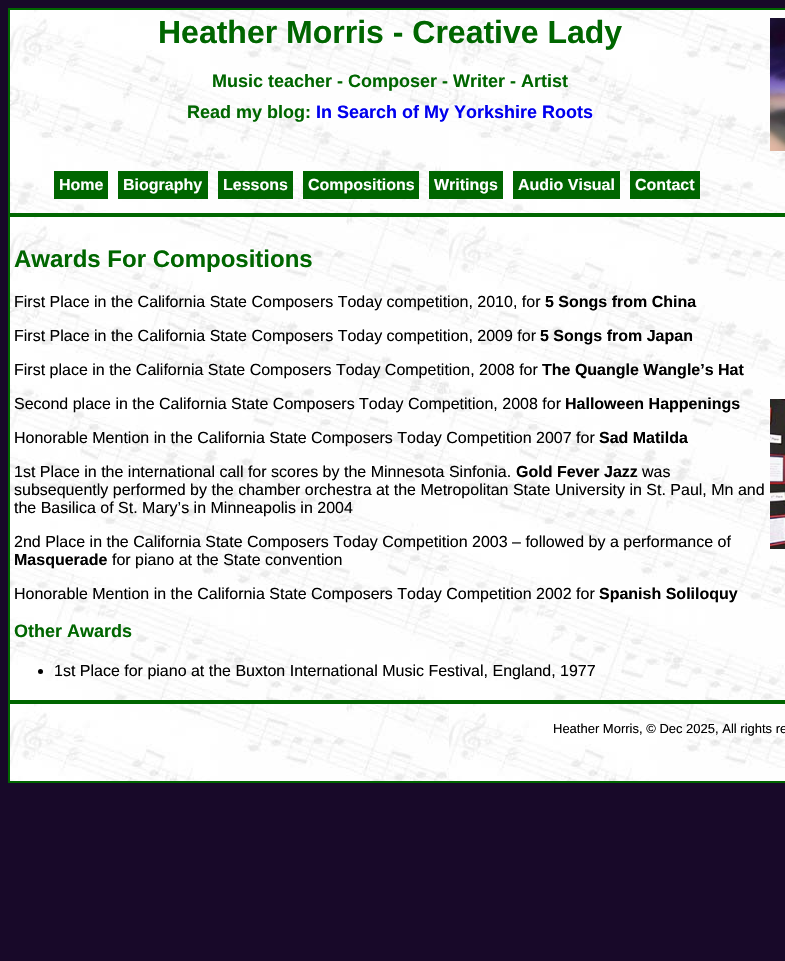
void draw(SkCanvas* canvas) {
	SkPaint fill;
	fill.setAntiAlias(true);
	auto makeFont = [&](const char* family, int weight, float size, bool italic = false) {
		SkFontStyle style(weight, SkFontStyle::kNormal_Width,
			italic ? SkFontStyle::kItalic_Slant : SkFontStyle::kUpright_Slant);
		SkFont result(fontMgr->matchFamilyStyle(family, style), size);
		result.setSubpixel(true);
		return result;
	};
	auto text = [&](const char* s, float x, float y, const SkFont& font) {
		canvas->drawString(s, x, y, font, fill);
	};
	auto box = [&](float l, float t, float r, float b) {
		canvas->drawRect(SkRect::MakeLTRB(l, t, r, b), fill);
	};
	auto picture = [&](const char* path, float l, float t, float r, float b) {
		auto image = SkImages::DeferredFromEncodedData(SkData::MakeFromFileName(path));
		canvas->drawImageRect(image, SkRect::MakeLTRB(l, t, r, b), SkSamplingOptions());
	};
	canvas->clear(0xFF180929);
	picture("image0.png", 10, 10, 785, 213);
	fill.setStyle(SkPaint::kStroke_Style);
	fill.setStrokeWidth(2);
	fill.setColor(0xFF006600);
	canvas->drawRect(SkRect::MakeLTRB(9, 9, 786, 214), fill);
	picture("image1.png", 770, 18, 785, 151);
	fill.setStyle(SkPaint::kFill_Style);
	box(54, 171, 108, 199);
	box(118, 171, 208, 199);
	box(218, 171, 293, 199);
	box(303, 171, 419, 199);
	box(429, 171, 503, 199);
	box(513, 171, 620, 199);
	box(630, 171, 700, 199);
	picture("image2.png", 10, 217, 785, 700);
	fill.setStyle(SkPaint::kStroke_Style);
	canvas->drawRect(SkRect::MakeLTRB(9, 216, 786, 701), fill);
	picture("image3.png", 770, 399, 785, 549);
	fill.setStyle(SkPaint::kFill_Style);
	fill.setColor(0xFF000000);
	canvas->drawCircle(40.5f, 671.5f, 2.5f, fill);
	picture("image4.png", 10, 704, 785, 781);
	fill.setStyle(SkPaint::kStroke_Style);
	fill.setColor(0xFF006600);
	canvas->drawRect(SkRect::MakeLTRB(9, 703, 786, 782), fill);
	auto font1 = makeFont("Liberation Sans", 700, 32);
	fill.setStyle(SkPaint::kFill_Style);
	text("Heather Morris - Creative Lady", 158, 43, font1);
	auto font2 = makeFont("Liberation Sans", 700, 18);
	text("Music teacher - Composer - Writer - Artist", 212, 87, font2);
	text("Read my blog:", 187, 118, font2);
	fill.setColor(0xFF0000EE);
	text("In Search of My Yorkshire Roots", 316, 118, font2);
	auto font3 = makeFont("Liberation Sans", 700, 16);
	fill.setColor(0xFFFFFFFF);
	text("Home", 59, 190, font3);
	text("Biography", 123, 190, font3);
	text("Lessons", 223, 190, font3);
	text("Compositions", 308, 190, font3);
	text("Writings", 434, 190, font3);
	text("Audio Visual", 518, 190, font3);
	text("Contact", 635, 190, font3);
	auto font4 = makeFont("Liberation Sans", 700, 24);
	fill.setColor(0xFF006600);
	text("Awards For Compositions", 14, 267, font4);
	auto font5 = makeFont("Liberation Sans", 400, 16);
	fill.setColor(0xFF000000);
	text("First Place in the California State Composers Today competition, 2010, for", 14, 307, font5);
	text("5 Songs from China", 545, 307, font3);
	text("First Place in the California State Composers Today competition, 2009 for", 14, 341, font5);
	text("5 Songs from Japan", 540, 341, font3);
	text("First place in the California State Composers Today Competition, 2008 for", 14, 375, font5);
	text("The Quangle Wangle’s Hat", 542, 375, font3);
	text("Second place in the California State Composers Today Competition, 2008 for", 14, 409, font5);
	text("Halloween Happenings", 565, 409, font3);
	text("Honorable Mention in the California State Composers Today Competition 2007 for", 14, 443, font5);
	text("Sad Matilda", 599, 443, font3);
	text("1st Place in the international call for scores by the Minnesota Sinfonia.", 14, 477, font5);
	text("Gold Fever Jazz", 516, 477, font3);
	text("was", 642, 477, font5);
	text("subsequently performed by the chamber orchestra at the Metropolitan State University in St. Paul, Mn and", 14, 495, font5);
	text("the Basilica of St. Mary’s in Minneapolis in 2004", 14, 513, font5);
	text("2nd Place in the California State Composers Today Competition 2003 – followed by a performance of", 14, 547, font5);
	text("Masquerade", 14, 565, font3);
	text("for piano at the State convention", 112, 565, font5);
	text("Honorable Mention in the California State Composers Today Competition 2002 for", 14, 599, font5);
	text("Spanish Soliloquy", 599, 599, font3);
	fill.setColor(0xFF006600);
	text("Other Awards", 14, 637, font2);
	fill.setColor(0xFF000000);
	text("1st Place for piano at the Buxton International Music Festival, England, 1977", 54, 676, font5);
	auto font6 = makeFont("Liberation Sans", 400, 13);
	text("Heather Morris, © Dec 2025, All rights re", 553, 733, font6);
}
